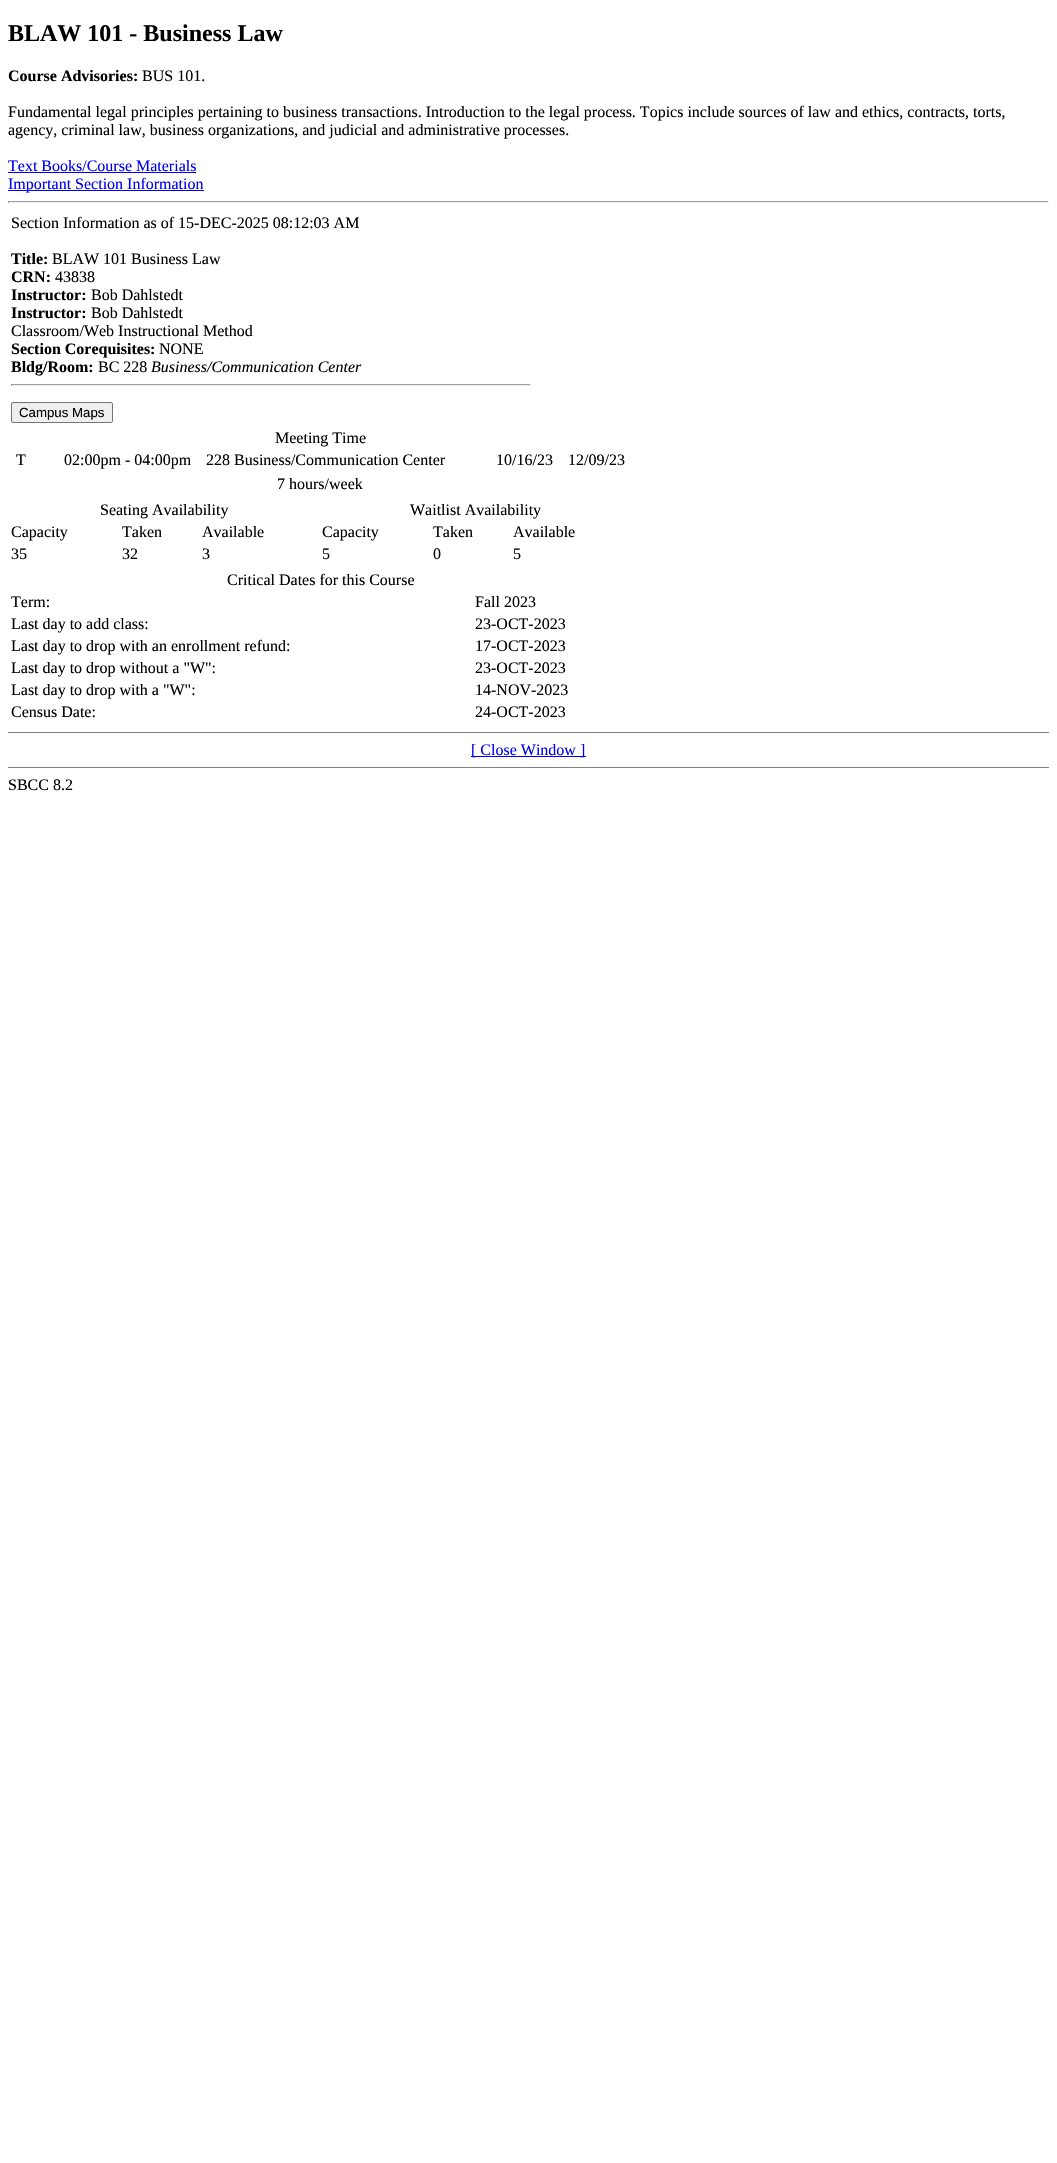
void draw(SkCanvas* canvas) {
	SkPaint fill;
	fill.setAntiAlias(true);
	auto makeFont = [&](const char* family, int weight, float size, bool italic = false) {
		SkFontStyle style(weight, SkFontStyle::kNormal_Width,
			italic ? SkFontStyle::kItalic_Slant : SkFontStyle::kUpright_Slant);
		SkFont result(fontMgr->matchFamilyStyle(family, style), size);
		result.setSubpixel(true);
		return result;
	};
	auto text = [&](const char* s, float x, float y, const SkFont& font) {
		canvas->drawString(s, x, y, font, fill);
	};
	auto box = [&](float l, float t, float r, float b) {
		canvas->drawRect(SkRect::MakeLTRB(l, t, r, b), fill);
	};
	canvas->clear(0xFFFFFFFF);
	fill.setColor(0xFF0000EE);
	box(8, 172, 196, 173);
	box(8, 190, 204, 191);
	fill.setColor(0xFF9F9F9F);
	box(8, 201, 1049, 202);
	fill.setColor(0xFFEEEEEE);
	box(1048, 201, 1049, 203);
	box(8, 202, 1049, 203);
	fill.setColor(0xFF9F9F9F);
	box(8, 201, 9, 203);
	box(11, 384, 531, 385);
	fill.setColor(0xFFEEEEEE);
	box(530, 384, 531, 386);
	box(11, 385, 531, 386);
	fill.setColor(0xFF9F9F9F);
	box(11, 384, 12, 386);
	fill.setColor(0xFFEFEFEF);
	canvas->drawRoundRect(SkRect::MakeLTRB(11.5f, 402.5f, 112.5f, 422.5f), 1.5f, 1.5f, fill);
	fill.setStyle(SkPaint::kStroke_Style);
	fill.setStrokeWidth(1);
	fill.setColor(0xFF767676);
	canvas->drawRoundRect(SkRect::MakeLTRB(11.5f, 402.5f, 112.5f, 422.5f), 1.5f, 1.5f, fill);
	fill.setStyle(SkPaint::kFill_Style);
	fill.setColor(0xFF808080);
	box(8, 732, 1049, 733);
	fill.setColor(0xFF0000EE);
	box(471, 756, 586, 757);
	fill.setColor(0xFF808080);
	box(8, 767, 1049, 768);
	auto font1 = makeFont("Liberation Serif", 700, 24);
	fill.setColor(0xFF000000);
	text("BLAW 101 - Business Law", 8, 41, font1);
	auto font2 = makeFont("Liberation Serif", 700, 16);
	text("Course Advisories:", 8, 81, font2);
	auto font3 = makeFont("Liberation Serif", 400, 16);
	text("BUS 101.", 142, 81, font3);
	text("Fundamental legal principles pertaining to business transactions. Introduction to the legal process. Topics include sources of law and ethics, contracts, torts,", 8, 117, font3);
	text("agency, criminal law, business organizations, and judicial and administrative processes.", 8, 135, font3);
	fill.setColor(0xFF0000EE);
	text("Text Books/Course Materials", 8, 171, font3);
	text("Important Section Information", 8, 189, font3);
	fill.setColor(0xFF000000);
	text("Section Information as of 15-DEC-2025 08:12:03 AM", 11, 228, font3);
	text("Title:", 11, 264, font2);
	text("BLAW 101 Business Law", 52, 264, font3);
	text("CRN:", 11, 282, font2);
	text("43838", 55, 282, font3);
	text("Instructor:", 11, 300, font2);
	text("Bob Dahlstedt", 91, 300, font3);
	text("Instructor:", 11, 318, font2);
	text("Bob Dahlstedt", 91, 318, font3);
	text("Classroom/Web Instructional Method", 11, 336, font3);
	text("Section Corequisites:", 11, 354, font2);
	text("NONE", 159, 354, font3);
	text("Bldg/Room:", 11, 372, font2);
	text("BC 228", 98, 372, font3);
	auto font4 = makeFont("Liberation Serif", 400, 16, true);
	text("Business/Communication Center", 151, 372, font4);
	auto font5 = makeFont("Liberation Sans", 400, 13.25f);
	text("Campus Maps", 19, 417, font5);
	text("Meeting Time", 275, 443, font3);
	text("T", 16, 465, font3);
	text("02:00pm - 04:00pm", 64, 465, font3);
	text("228 Business/Communication Center", 206, 465, font3);
	text("10/16/23", 496, 465, font3);
	text("12/09/23", 568, 465, font3);
	text("7 hours/week", 277, 489, font3);
	text("Seating Availability", 100, 515, font3);
	text("Waitlist Availability", 410, 515, font3);
	text("Capacity", 11, 537, font3);
	text("Taken", 122, 537, font3);
	text("Available", 202, 537, font3);
	text("Capacity", 322, 537, font3);
	text("Taken", 433, 537, font3);
	text("Available", 513, 537, font3);
	text("35", 11, 559, font3);
	text("32", 122, 559, font3);
	text("3", 202, 559, font3);
	text("5", 322, 559, font3);
	text("0", 433, 559, font3);
	text("5", 513, 559, font3);
	text("Critical Dates for this Course", 227, 585, font3);
	text("Term:", 11, 607, font3);
	text("Fall 2023", 475, 607, font3);
	text("Last day to add class:", 11, 629, font3);
	text("23-OCT-2023", 475, 629, font3);
	text("Last day to drop with an enrollment refund:", 11, 651, font3);
	text("17-OCT-2023", 475, 651, font3);
	text("Last day to drop without a \"W\":", 11, 673, font3);
	text("23-OCT-2023", 475, 673, font3);
	text("Last day to drop with a \"W\":", 11, 695, font3);
	text("14-NOV-2023", 475, 695, font3);
	text("Census Date:", 11, 717, font3);
	text("24-OCT-2023", 475, 717, font3);
	fill.setColor(0xFF0000EE);
	text("[ Close Window ]", 471, 755, font3);
	fill.setColor(0xFF000000);
	text("SBCC 8.2", 8, 790, font3);
}
